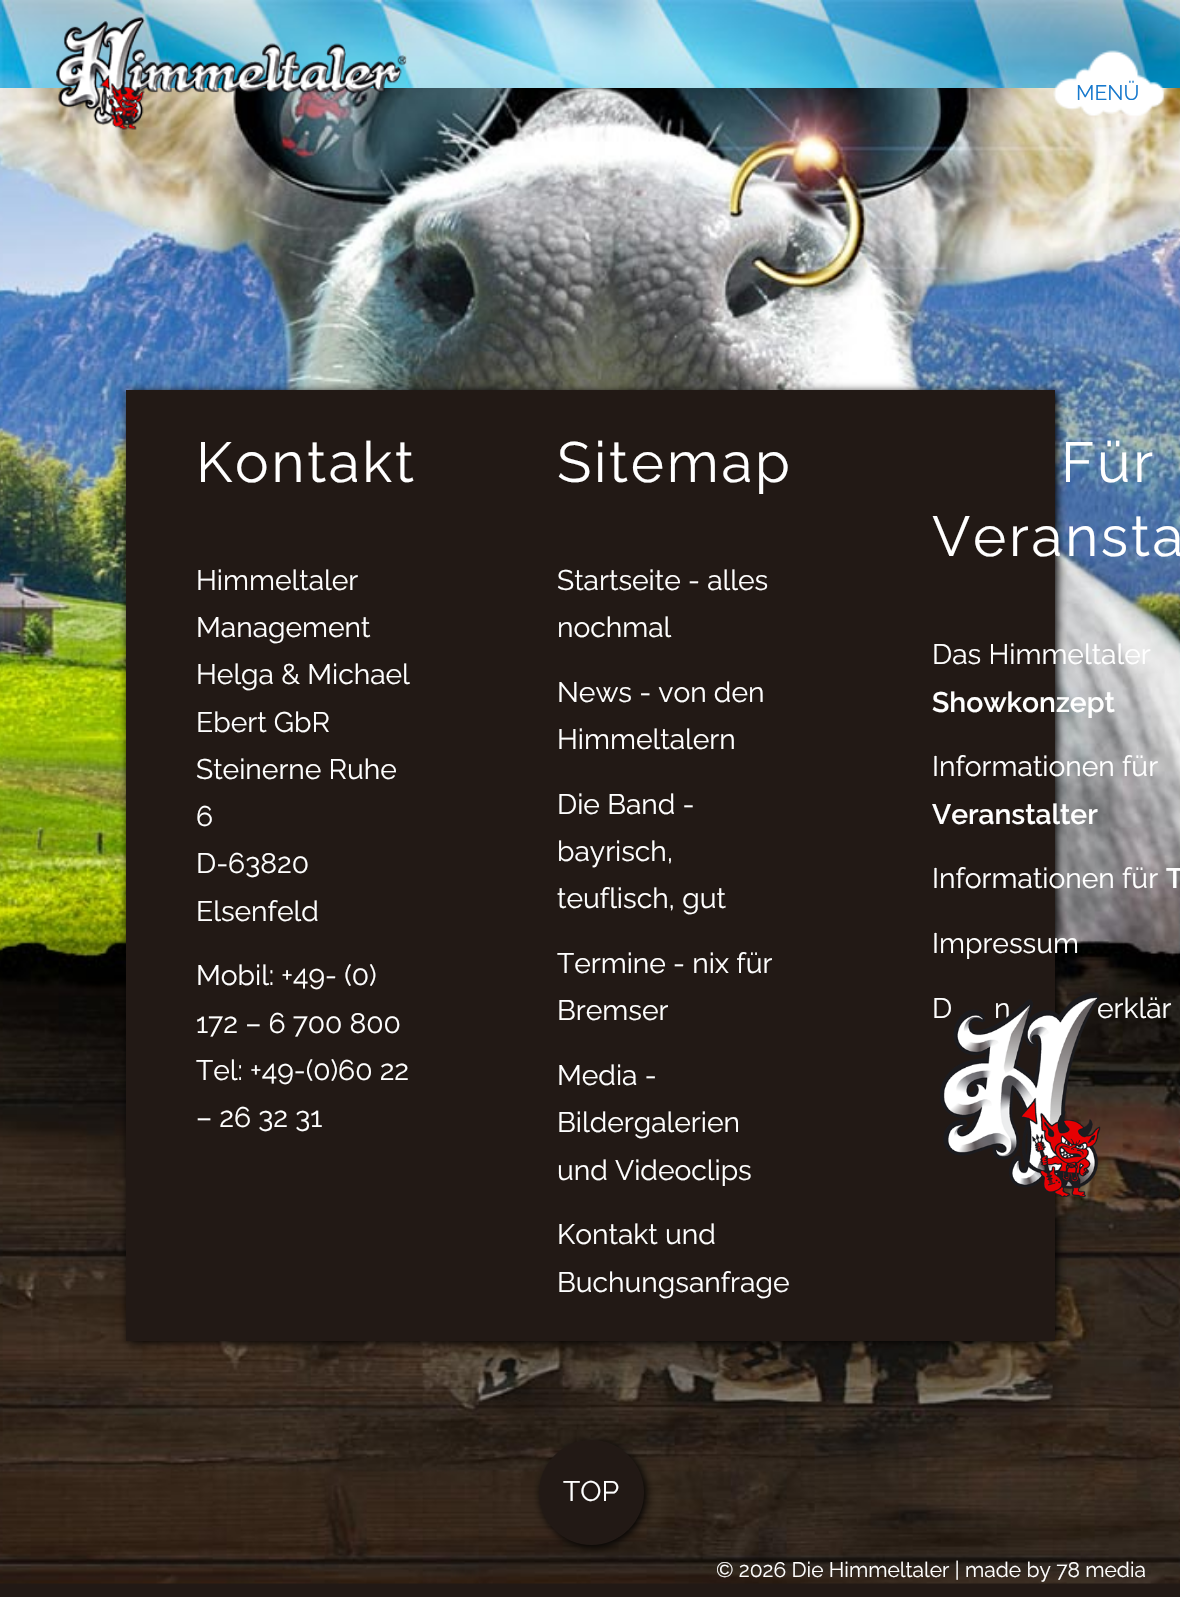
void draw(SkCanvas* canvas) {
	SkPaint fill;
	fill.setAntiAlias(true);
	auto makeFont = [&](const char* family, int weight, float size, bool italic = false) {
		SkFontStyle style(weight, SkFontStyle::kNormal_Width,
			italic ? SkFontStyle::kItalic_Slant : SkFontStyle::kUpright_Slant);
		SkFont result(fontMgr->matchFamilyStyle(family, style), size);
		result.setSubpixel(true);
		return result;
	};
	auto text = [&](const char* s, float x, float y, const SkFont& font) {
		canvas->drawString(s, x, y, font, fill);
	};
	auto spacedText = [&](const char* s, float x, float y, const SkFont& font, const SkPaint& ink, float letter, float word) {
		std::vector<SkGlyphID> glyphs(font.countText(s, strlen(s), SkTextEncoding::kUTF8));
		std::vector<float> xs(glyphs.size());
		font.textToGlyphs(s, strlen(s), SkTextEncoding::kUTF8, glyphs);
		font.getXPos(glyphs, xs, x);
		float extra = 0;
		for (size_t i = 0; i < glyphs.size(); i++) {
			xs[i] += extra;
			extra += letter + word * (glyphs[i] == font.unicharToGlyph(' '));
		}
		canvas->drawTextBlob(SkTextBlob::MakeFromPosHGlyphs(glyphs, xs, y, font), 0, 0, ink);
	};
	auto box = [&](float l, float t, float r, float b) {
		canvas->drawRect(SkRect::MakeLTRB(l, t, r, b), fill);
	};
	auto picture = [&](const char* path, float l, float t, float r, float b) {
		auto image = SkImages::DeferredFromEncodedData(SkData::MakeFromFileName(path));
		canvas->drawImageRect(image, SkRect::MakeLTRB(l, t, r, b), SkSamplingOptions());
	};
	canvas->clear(0xFF221915);
	picture("image0.png", 0, 0, 1180, 88);
	picture("image3.png", 0, 88, 1180, 1584);
	picture("image1.png", 56, 17, 407, 130);
	picture("image2.png", 1053, 50, 1164, 116);
	fill.setColor(0xFF000000);
	fill.setMaskFilter(SkMaskFilter::MakeBlur(kNormal_SkBlurStyle, 4.5f));
	canvas->drawRect(SkRect::MakeLTRB(128, 392, 1057, 1342), fill);
	fill.setMaskFilter(nullptr);
	fill.setColor(0xFF221915);
	box(126, 390, 1055, 1341);
	fill.setColor(0xFF000000);
	fill.setMaskFilter(SkMaskFilter::MakeBlur(kNormal_SkBlurStyle, 4.5f));
	canvas->drawRoundRect(SkRect::MakeLTRB(541, 1442, 646, 1547), 52.5f, 52.5f, fill);
	fill.setMaskFilter(nullptr);
	fill.setColor(0xFF221915);
	canvas->drawCircle(591.5f, 1492.5f, 52.5f, fill);
	auto font1 = makeFont("Raleway", 400, 21);
	fill.setColor(0xFF1779CD);
	text("MENÜ", 1076, 100, font1);
	auto font2 = makeFont("Raleway", 400, 56.5f);
	fill.setColor(0xFFFFFFFF);
	spacedText("Kontakt", 196, 482, font2, fill, 2.75f, 0);
	auto font3 = makeFont("Raleway", 400, 28.25f);
	text("Himmeltaler", 196, 590, font3);
	text("Management", 196, 637, font3);
	text("Helga & Michael", 196, 684, font3);
	text("Ebert GbR", 196, 732, font3);
	text("Steinerne Ruhe", 196, 779, font3);
	text("6", 196, 826, font3);
	text("D-63820", 196, 873, font3);
	text("Elsenfeld", 196, 921, font3);
	text("Mobil: +49- (0)", 196, 985, font3);
	text("172 – 6 700 800", 196, 1033, font3);
	text("Tel: +49-(0)60 22", 196, 1080, font3);
	text("– 26 32 31", 196, 1127, font3);
	spacedText("Sitemap", 557, 482, font2, fill, 2.75f, 0);
	text("Startseite - alles", 557, 590, font3);
	text("nochmal", 557, 637, font3);
	text("News - von den", 557, 702, font3);
	text("Himmeltalern", 557, 749, font3);
	text("Die Band -", 557, 814, font3);
	text("bayrisch,", 557, 861, font3);
	text("teuflisch, gut", 557, 908, font3);
	text("Termine - nix für", 557, 973, font3);
	text("Bremser", 557, 1020, font3);
	text("Media -", 557, 1085, font3);
	text("Bildergalerien", 557, 1132, font3);
	text("und Videoclips", 557, 1180, font3);
	text("Kontakt und", 557, 1244, font3);
	text("Buchungsanfrage", 557, 1292, font3);
	spacedText("Für", 1061, 482, font2, fill, 2.75f, 0);
	spacedText("Veransta", 932, 556, font2, fill, 2.75f, 0);
	text("Das Himmeltaler", 932, 664, font3);
	auto font4 = makeFont("Raleway", 600, 28.25f);
	text("Showkonzept", 932, 712, font4);
	text("Informationen für", 932, 776, font3);
	text("Veranstalter", 932, 824, font4);
	text("Informationen für", 932, 888, font3);
	text("T", 1166, 888, font4);
	text("Impressum", 932, 953, font3);
	text("D", 932, 1018, font3);
	text("n", 994, 1018, font3);
	text("erklär", 1097, 1018, font3);
	picture("image4.png", 940, 992, 1101, 1197);
	text("TOP", 563, 1501, font3);
	text("© 2026 Die Himmeltaler | made by 78 media", 716, 1577, font1);
}
